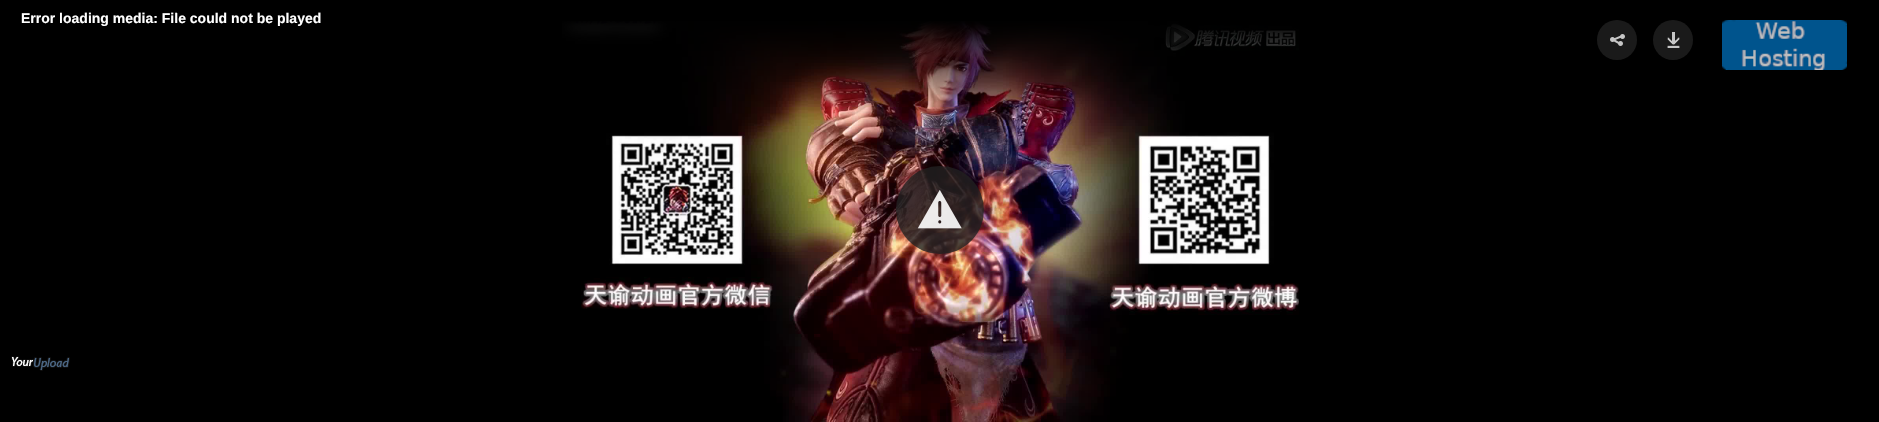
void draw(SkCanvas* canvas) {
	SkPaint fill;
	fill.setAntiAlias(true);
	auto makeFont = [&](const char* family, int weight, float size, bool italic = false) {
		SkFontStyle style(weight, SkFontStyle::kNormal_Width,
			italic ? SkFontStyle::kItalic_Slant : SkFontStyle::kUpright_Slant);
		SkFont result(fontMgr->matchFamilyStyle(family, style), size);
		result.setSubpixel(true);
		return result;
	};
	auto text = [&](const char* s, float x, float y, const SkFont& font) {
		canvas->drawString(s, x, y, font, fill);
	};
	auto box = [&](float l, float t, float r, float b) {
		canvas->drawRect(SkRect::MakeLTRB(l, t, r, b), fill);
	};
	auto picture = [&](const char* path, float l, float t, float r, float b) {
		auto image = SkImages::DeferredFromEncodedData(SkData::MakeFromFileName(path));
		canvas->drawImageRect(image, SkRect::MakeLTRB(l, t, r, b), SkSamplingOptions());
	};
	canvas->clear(0xFF000000);
	picture("image5.png", 562, 21, 1299, 422);
	{
		const SkColor colors[] = {0xFF000000, 0xFF000000, 0x00000000};
		const float stops[] = {0, 0.18f, 1};
		const SkPoint ends[] = {{940, 0}, {940, 112}};
		fill.setShader(SkGradientShader::MakeLinear(ends, colors, stops, 3, SkTileMode::kClamp));
		fill.setAlpha(255);
	}
	box(562, 21, 1296, 110);
	fill.setShader(nullptr);
	fill.setColor(0xFF1A1A1A);
	canvas->drawCircle(1617, 40, 20, fill);
	picture("image0.png", 1610, 34, 1625, 46);
	canvas->drawCircle(1673, 40, 20, fill);
	picture("image1.png", 1667, 32, 1680, 48);
	picture("image2.png", 1722, 20, 1847, 70);
	picture("image3.png", 11, 356, 70, 371);
	fill.setColor(0xCC212121);
	canvas->drawCircle(940, 210, 44, fill);
	picture("image4.png", 917, 190, 962, 229);
	auto font1 = makeFont("Liberation Sans", 700, 14);
	fill.setColor(0xFFFFFFFF);
	text("Error loading media: File could not be played", 21, 23, font1);
}
